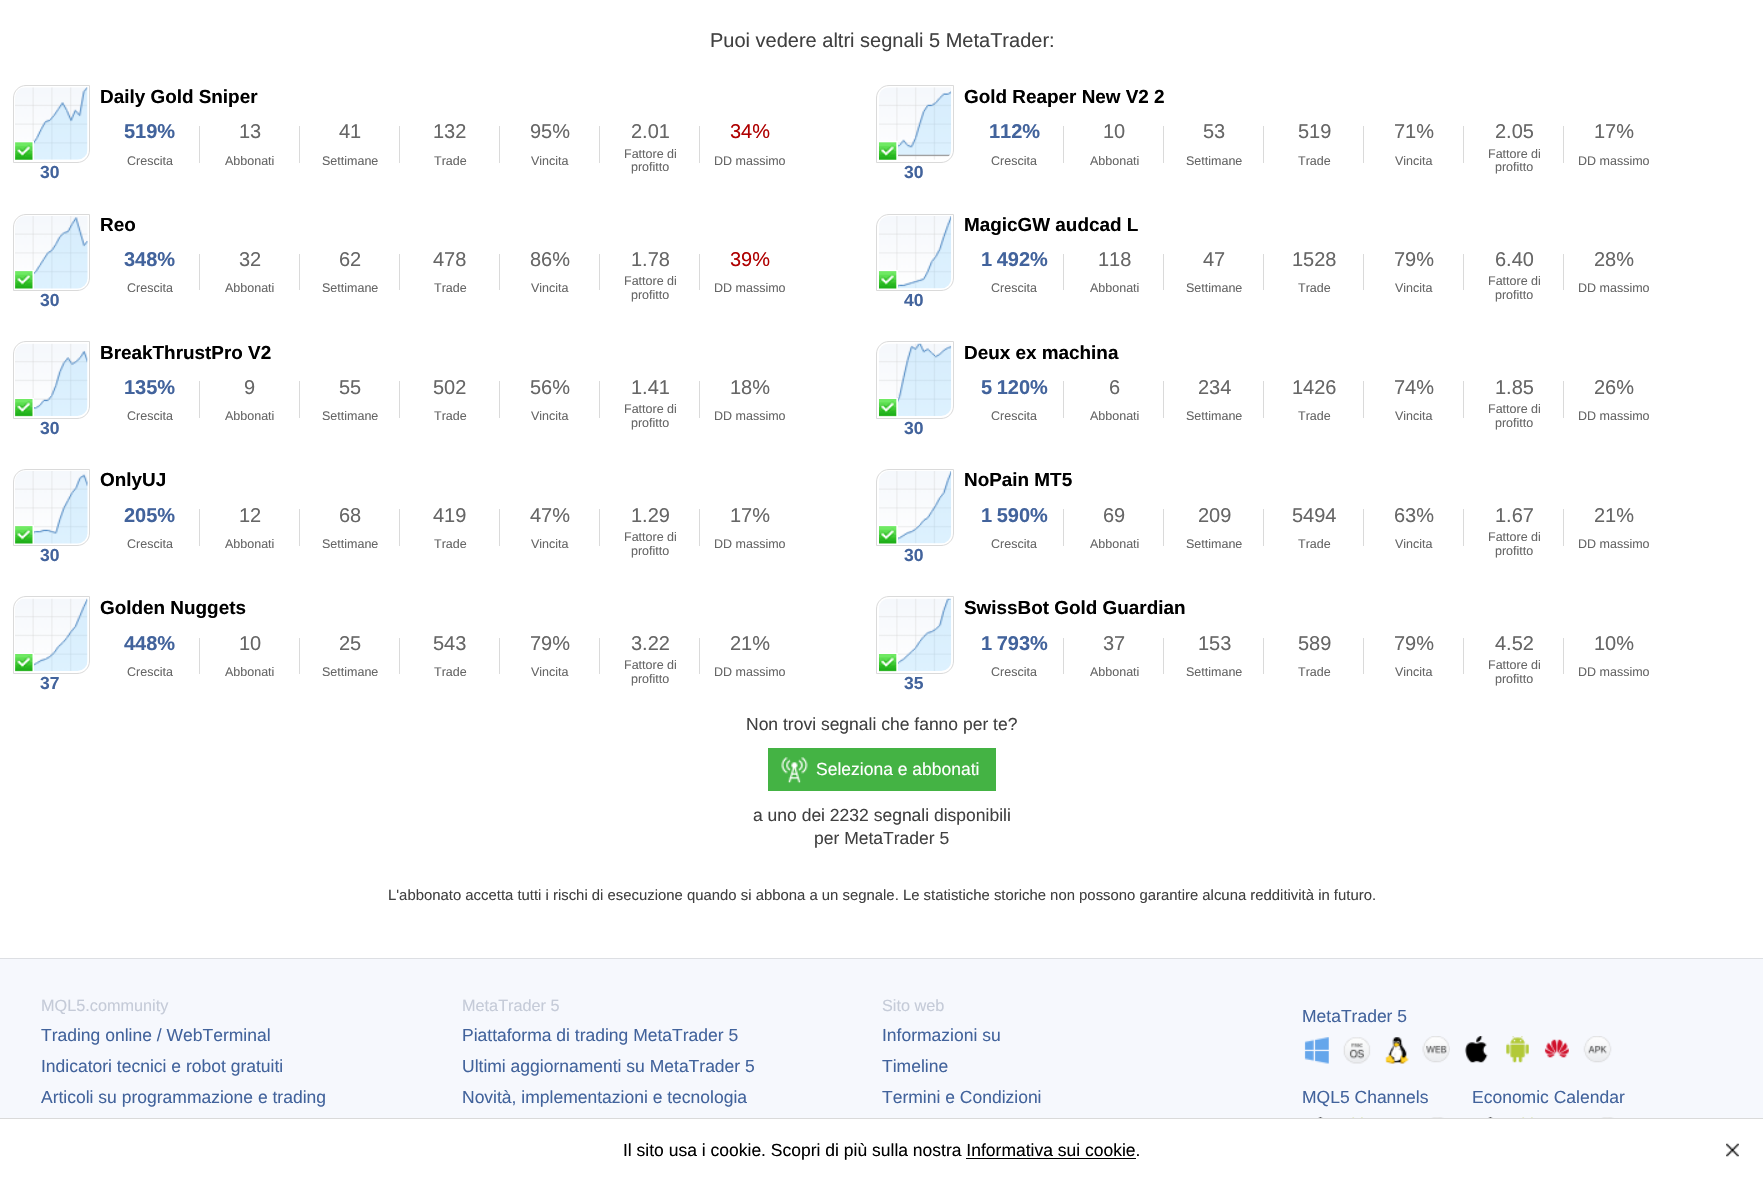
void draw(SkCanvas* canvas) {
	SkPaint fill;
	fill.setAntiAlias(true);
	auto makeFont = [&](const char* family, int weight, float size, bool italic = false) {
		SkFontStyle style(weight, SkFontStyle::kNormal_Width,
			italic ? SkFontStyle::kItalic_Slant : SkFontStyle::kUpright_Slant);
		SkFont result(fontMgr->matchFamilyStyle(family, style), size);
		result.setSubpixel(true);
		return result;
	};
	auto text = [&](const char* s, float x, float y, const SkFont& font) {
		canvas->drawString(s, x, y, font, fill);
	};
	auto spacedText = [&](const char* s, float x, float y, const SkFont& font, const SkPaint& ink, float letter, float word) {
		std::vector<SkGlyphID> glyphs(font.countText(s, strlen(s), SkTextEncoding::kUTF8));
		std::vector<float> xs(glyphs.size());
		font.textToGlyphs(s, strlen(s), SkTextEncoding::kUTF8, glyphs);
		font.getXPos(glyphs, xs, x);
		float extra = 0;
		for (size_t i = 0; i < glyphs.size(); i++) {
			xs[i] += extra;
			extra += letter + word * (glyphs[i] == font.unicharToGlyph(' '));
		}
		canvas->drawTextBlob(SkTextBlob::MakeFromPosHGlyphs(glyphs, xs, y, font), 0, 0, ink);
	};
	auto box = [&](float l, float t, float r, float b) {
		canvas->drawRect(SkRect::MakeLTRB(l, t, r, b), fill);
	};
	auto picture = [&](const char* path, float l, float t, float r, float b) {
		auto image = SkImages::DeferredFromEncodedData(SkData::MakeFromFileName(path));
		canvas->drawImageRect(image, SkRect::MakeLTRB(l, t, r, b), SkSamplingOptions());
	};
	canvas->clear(0xFFFFFFFF);
	fill.setStyle(SkPaint::kStroke_Style);
	fill.setStrokeWidth(1);
	fill.setColor(0xFFDADADA);
	canvas->drawPath(SkPathBuilder().moveTo(26, 85.5f).lineTo(89.5f, 85.5f).lineTo(89.5f, 150).cubicTo(89.5f, 157, 84, 162.5f, 77, 162.5f).lineTo(13.5f, 162.5f).lineTo(13.5f, 98).cubicTo(13.5f, 91, 19, 85.5f, 26, 85.5f).close().detach(), fill);
	picture("image0.png", 15, 87, 88, 160);
	fill.setStyle(SkPaint::kFill_Style);
	fill.setColor(0xFFFFFFFF);
	box(15, 142, 33, 160);
	picture("image1.png", 15, 142, 33, 160);
	fill.setStyle(SkPaint::kStroke_Style);
	canvas->drawRect(SkRect::MakeLTRB(14.5f, 141.5f, 33.5f, 160.5f), fill);
	fill.setStyle(SkPaint::kFill_Style);
	fill.setColor(0xFFDADADA);
	box(199, 126, 200, 163);
	box(299, 126, 300, 163);
	box(399, 126, 400, 163);
	box(499, 126, 500, 163);
	box(599, 126, 600, 163);
	box(699, 126, 700, 163);
	fill.setStyle(SkPaint::kStroke_Style);
	canvas->drawPath(SkPathBuilder().moveTo(26, 214.5f).lineTo(89.5f, 214.5f).lineTo(89.5f, 278).cubicTo(89.5f, 285, 84, 290.5f, 77, 290.5f).lineTo(13.5f, 290.5f).lineTo(13.5f, 227).cubicTo(13.5f, 220, 19, 214.5f, 26, 214.5f).close().detach(), fill);
	picture("image2.png", 15, 216, 88, 289);
	fill.setStyle(SkPaint::kFill_Style);
	fill.setColor(0xFFFFFFFF);
	box(15, 271, 33, 289);
	picture("image3.png", 15, 271, 33, 289);
	fill.setStyle(SkPaint::kStroke_Style);
	canvas->drawRect(SkRect::MakeLTRB(14.5f, 270.5f, 33.5f, 289.5f), fill);
	fill.setStyle(SkPaint::kFill_Style);
	fill.setColor(0xFFDADADA);
	box(199, 254, 200, 290);
	box(299, 254, 300, 290);
	box(399, 254, 400, 290);
	box(499, 254, 500, 290);
	box(599, 254, 600, 290);
	box(699, 254, 700, 290);
	fill.setStyle(SkPaint::kStroke_Style);
	canvas->drawPath(SkPathBuilder().moveTo(26, 341.5f).lineTo(89.5f, 341.5f).lineTo(89.5f, 406).cubicTo(89.5f, 413, 84, 418.5f, 77, 418.5f).lineTo(13.5f, 418.5f).lineTo(13.5f, 354).cubicTo(13.5f, 347, 19, 341.5f, 26, 341.5f).close().detach(), fill);
	picture("image4.png", 15, 343, 88, 416);
	fill.setStyle(SkPaint::kFill_Style);
	fill.setColor(0xFFFFFFFF);
	box(15, 399, 33, 416);
	picture("image5.png", 15, 399, 33, 417);
	fill.setStyle(SkPaint::kStroke_Style);
	canvas->drawRect(SkRect::MakeLTRB(14.5f, 398.5f, 33.5f, 417.5f), fill);
	fill.setStyle(SkPaint::kFill_Style);
	fill.setColor(0xFFDADADA);
	box(199, 381, 200, 418);
	box(299, 381, 300, 418);
	box(399, 381, 400, 418);
	box(499, 381, 500, 418);
	box(599, 381, 600, 418);
	box(699, 381, 700, 418);
	fill.setStyle(SkPaint::kStroke_Style);
	canvas->drawPath(SkPathBuilder().moveTo(26, 469.5f).lineTo(89.5f, 469.5f).lineTo(89.5f, 533).cubicTo(89.5f, 540, 84, 545.5f, 77, 545.5f).lineTo(13.5f, 545.5f).lineTo(13.5f, 482).cubicTo(13.5f, 475, 19, 469.5f, 26, 469.5f).close().detach(), fill);
	picture("image6.png", 15, 471, 88, 544);
	fill.setStyle(SkPaint::kFill_Style);
	fill.setColor(0xFFFFFFFF);
	box(15, 526, 33, 544);
	picture("image3.png", 15, 526, 33, 544);
	fill.setStyle(SkPaint::kStroke_Style);
	canvas->drawRect(SkRect::MakeLTRB(14.5f, 525.5f, 33.5f, 544.5f), fill);
	fill.setStyle(SkPaint::kFill_Style);
	fill.setColor(0xFFDADADA);
	box(199, 509, 200, 546);
	box(299, 509, 300, 546);
	box(399, 509, 400, 546);
	box(499, 509, 500, 546);
	box(599, 509, 600, 546);
	box(699, 509, 700, 546);
	fill.setStyle(SkPaint::kStroke_Style);
	canvas->drawPath(SkPathBuilder().moveTo(26, 596.5f).lineTo(89.5f, 596.5f).lineTo(89.5f, 661).cubicTo(89.5f, 668, 84, 673.5f, 77, 673.5f).lineTo(13.5f, 673.5f).lineTo(13.5f, 609).cubicTo(13.5f, 602, 19, 596.5f, 26, 596.5f).close().detach(), fill);
	picture("image7.png", 15, 598, 88, 671);
	fill.setStyle(SkPaint::kFill_Style);
	fill.setColor(0xFFFFFFFF);
	box(15, 654, 33, 671);
	picture("image5.png", 15, 654, 33, 672);
	fill.setStyle(SkPaint::kStroke_Style);
	canvas->drawRect(SkRect::MakeLTRB(14.5f, 653.5f, 33.5f, 672.5f), fill);
	fill.setStyle(SkPaint::kFill_Style);
	fill.setColor(0xFFDADADA);
	box(199, 638, 200, 674);
	box(299, 638, 300, 674);
	box(399, 638, 400, 674);
	box(499, 638, 500, 674);
	box(599, 638, 600, 674);
	box(699, 638, 700, 674);
	fill.setStyle(SkPaint::kStroke_Style);
	canvas->drawPath(SkPathBuilder().moveTo(889, 85.5f).lineTo(953.5f, 85.5f).lineTo(953.5f, 150).cubicTo(953.5f, 157, 948, 162.5f, 941, 162.5f).lineTo(876.5f, 162.5f).lineTo(876.5f, 98).cubicTo(876.5f, 91, 882, 85.5f, 889, 85.5f).close().detach(), fill);
	picture("image8.png", 878, 87, 952, 160);
	fill.setStyle(SkPaint::kFill_Style);
	fill.setColor(0xFFFFFFFF);
	box(879, 142, 897, 160);
	picture("image9.png", 879, 142, 897, 160);
	fill.setStyle(SkPaint::kStroke_Style);
	canvas->drawRect(SkRect::MakeLTRB(878.5f, 141.5f, 897.5f, 160.5f), fill);
	fill.setStyle(SkPaint::kFill_Style);
	fill.setColor(0xFFDADADA);
	box(1063, 126, 1064, 163);
	box(1163, 126, 1164, 163);
	box(1263, 126, 1264, 163);
	box(1363, 126, 1364, 163);
	box(1463, 126, 1464, 163);
	box(1563, 126, 1564, 163);
	fill.setStyle(SkPaint::kStroke_Style);
	canvas->drawPath(SkPathBuilder().moveTo(889, 214.5f).lineTo(953.5f, 214.5f).lineTo(953.5f, 278).cubicTo(953.5f, 285, 948, 290.5f, 941, 290.5f).lineTo(876.5f, 290.5f).lineTo(876.5f, 227).cubicTo(876.5f, 220, 882, 214.5f, 889, 214.5f).close().detach(), fill);
	picture("image10.png", 878, 216, 952, 289);
	fill.setStyle(SkPaint::kFill_Style);
	fill.setColor(0xFFFFFFFF);
	box(879, 271, 897, 289);
	picture("image11.png", 879, 271, 897, 289);
	fill.setStyle(SkPaint::kStroke_Style);
	canvas->drawRect(SkRect::MakeLTRB(878.5f, 270.5f, 897.5f, 289.5f), fill);
	fill.setStyle(SkPaint::kFill_Style);
	fill.setColor(0xFFDADADA);
	box(1063, 254, 1064, 290);
	box(1163, 254, 1164, 290);
	box(1263, 254, 1264, 290);
	box(1363, 254, 1364, 290);
	box(1463, 254, 1464, 290);
	box(1563, 254, 1564, 290);
	fill.setStyle(SkPaint::kStroke_Style);
	canvas->drawPath(SkPathBuilder().moveTo(889, 341.5f).lineTo(953.5f, 341.5f).lineTo(953.5f, 406).cubicTo(953.5f, 413, 948, 418.5f, 941, 418.5f).lineTo(876.5f, 418.5f).lineTo(876.5f, 354).cubicTo(876.5f, 347, 882, 341.5f, 889, 341.5f).close().detach(), fill);
	picture("image12.png", 878, 343, 952, 416);
	fill.setStyle(SkPaint::kFill_Style);
	fill.setColor(0xFFFFFFFF);
	box(879, 399, 897, 416);
	picture("image13.png", 879, 399, 897, 417);
	fill.setStyle(SkPaint::kStroke_Style);
	canvas->drawRect(SkRect::MakeLTRB(878.5f, 398.5f, 897.5f, 417.5f), fill);
	fill.setStyle(SkPaint::kFill_Style);
	fill.setColor(0xFFDADADA);
	box(1063, 381, 1064, 418);
	box(1163, 381, 1164, 418);
	box(1263, 381, 1264, 418);
	box(1363, 381, 1364, 418);
	box(1463, 381, 1464, 418);
	box(1563, 381, 1564, 418);
	fill.setStyle(SkPaint::kStroke_Style);
	canvas->drawPath(SkPathBuilder().moveTo(889, 469.5f).lineTo(953.5f, 469.5f).lineTo(953.5f, 533).cubicTo(953.5f, 540, 948, 545.5f, 941, 545.5f).lineTo(876.5f, 545.5f).lineTo(876.5f, 482).cubicTo(876.5f, 475, 882, 469.5f, 889, 469.5f).close().detach(), fill);
	picture("image14.png", 878, 471, 952, 544);
	fill.setStyle(SkPaint::kFill_Style);
	fill.setColor(0xFFFFFFFF);
	box(879, 526, 897, 544);
	picture("image11.png", 879, 526, 897, 544);
	fill.setStyle(SkPaint::kStroke_Style);
	canvas->drawRect(SkRect::MakeLTRB(878.5f, 525.5f, 897.5f, 544.5f), fill);
	fill.setStyle(SkPaint::kFill_Style);
	fill.setColor(0xFFDADADA);
	box(1063, 509, 1064, 546);
	box(1163, 509, 1164, 546);
	box(1263, 509, 1264, 546);
	box(1363, 509, 1364, 546);
	box(1463, 509, 1464, 546);
	box(1563, 509, 1564, 546);
	fill.setStyle(SkPaint::kStroke_Style);
	canvas->drawPath(SkPathBuilder().moveTo(889, 596.5f).lineTo(953.5f, 596.5f).lineTo(953.5f, 661).cubicTo(953.5f, 668, 948, 673.5f, 941, 673.5f).lineTo(876.5f, 673.5f).lineTo(876.5f, 609).cubicTo(876.5f, 602, 882, 596.5f, 889, 596.5f).close().detach(), fill);
	picture("image15.png", 878, 598, 952, 671);
	fill.setStyle(SkPaint::kFill_Style);
	fill.setColor(0xFFFFFFFF);
	box(879, 654, 897, 671);
	picture("image13.png", 879, 654, 897, 672);
	fill.setStyle(SkPaint::kStroke_Style);
	canvas->drawRect(SkRect::MakeLTRB(878.5f, 653.5f, 897.5f, 672.5f), fill);
	fill.setStyle(SkPaint::kFill_Style);
	fill.setColor(0xFFDADADA);
	box(1063, 638, 1064, 674);
	box(1163, 638, 1164, 674);
	box(1263, 638, 1264, 674);
	box(1363, 638, 1364, 674);
	box(1463, 638, 1464, 674);
	box(1563, 638, 1564, 674);
	fill.setColor(0xFF44B344);
	box(768, 748, 996, 791);
	picture("image16.png", 781, 757, 808, 784);
	fill.setColor(0xFFF6F8FD);
	box(0, 959, 1763, 1118);
	fill.setColor(0xFFDDDFE3);
	box(0, 958, 1763, 959);
	picture("image17.png", 1304, 1037, 1329, 1064);
	picture("image18.png", 1343, 1037, 1371, 1064);
	picture("image19.png", 1385, 1037, 1409, 1064);
	picture("image20.png", 1422, 1036, 1450, 1063);
	picture("image21.png", 1464, 1036, 1488, 1063);
	picture("image22.png", 1506, 1036, 1529, 1063);
	picture("image23.png", 1544, 1039, 1569, 1058);
	picture("image24.png", 1583, 1036, 1612, 1063);
	picture("image25.png", 1318, 1117, 1323, 1118);
	picture("image26.png", 1352, 1117, 1363, 1118);
	picture("image27.png", 1431, 1117, 1444, 1118);
	picture("image25.png", 1488, 1117, 1493, 1118);
	picture("image28.png", 1522, 1117, 1533, 1118);
	picture("image27.png", 1601, 1117, 1614, 1118);
	fill.setColor(0xFFDADADA);
	box(0, 1118, 1763, 1119);
	picture("image29.png", 1726, 1143, 1739, 1157);
	fill.setColor(0xFF000000);
	box(966, 1158, 1136, 1159);
	auto font1 = makeFont("Liberation Sans", 400, 20);
	fill.setColor(0xFF404040);
	text("Puoi vedere altri segnali 5 MetaTrader:", 710, 47, font1);
	auto font2 = makeFont("Liberation Sans", 700, 17.5f);
	fill.setColor(0xFF42639C);
	text("30", 40, 178, font2);
	auto font3 = makeFont("Liberation Sans", 700, 18.9f);
	fill.setColor(0xFF000000);
	text("Daily Gold Sniper", 100, 103, font3);
	auto font4 = makeFont("Liberation Sans", 700, 20);
	fill.setColor(0xFF42639C);
	text("519%", 124, 138, font4);
	fill.setColor(0xFF666666);
	text("13", 239, 138, font1);
	text("41", 339, 138, font1);
	text("132", 433, 138, font1);
	text("95%", 530, 138, font1);
	text("2.01", 631, 138, font1);
	fill.setColor(0xFFAF0000);
	text("34%", 730, 138, font1);
	auto font5 = makeFont("Liberation Sans", 400, 12.5f);
	fill.setColor(0xFF666666);
	text("Crescita", 127, 165, font5);
	text("Abbonati", 225, 165, font5);
	text("Settimane", 322, 165, font5);
	text("Trade", 434, 165, font5);
	text("Vincita", 531, 165, font5);
	text("Fattore di", 624, 158, font5);
	text("profitto", 631, 171, font5);
	text("DD massimo", 714, 165, font5);
	fill.setColor(0xFF42639C);
	text("30", 40, 306, font2);
	fill.setColor(0xFF000000);
	text("Reo", 100, 231, font3);
	fill.setColor(0xFF42639C);
	text("348%", 124, 266, font4);
	fill.setColor(0xFF666666);
	text("32", 239, 266, font1);
	text("62", 339, 266, font1);
	text("478", 433, 266, font1);
	text("86%", 530, 266, font1);
	text("1.78", 631, 266, font1);
	fill.setColor(0xFFAF0000);
	text("39%", 730, 266, font1);
	fill.setColor(0xFF666666);
	text("Crescita", 127, 292, font5);
	text("Abbonati", 225, 292, font5);
	text("Settimane", 322, 292, font5);
	text("Trade", 434, 292, font5);
	text("Vincita", 531, 292, font5);
	text("Fattore di", 624, 285, font5);
	text("profitto", 631, 299, font5);
	text("DD massimo", 714, 292, font5);
	fill.setColor(0xFF42639C);
	text("30", 40, 434, font2);
	fill.setColor(0xFF000000);
	text("BreakThrustPro V2", 100, 359, font3);
	fill.setColor(0xFF42639C);
	text("135%", 124, 394, font4);
	fill.setColor(0xFF666666);
	text("9", 244, 394, font1);
	text("55", 339, 394, font1);
	text("502", 433, 394, font1);
	text("56%", 530, 394, font1);
	text("1.41", 631, 394, font1);
	text("18%", 730, 394, font1);
	text("Crescita", 127, 420, font5);
	text("Abbonati", 225, 420, font5);
	text("Settimane", 322, 420, font5);
	text("Trade", 434, 420, font5);
	text("Vincita", 531, 420, font5);
	text("Fattore di", 624, 413, font5);
	text("profitto", 631, 427, font5);
	text("DD massimo", 714, 420, font5);
	fill.setColor(0xFF42639C);
	text("30", 40, 561, font2);
	fill.setColor(0xFF000000);
	text("OnlyUJ", 100, 486, font3);
	fill.setColor(0xFF42639C);
	text("205%", 124, 522, font4);
	fill.setColor(0xFF666666);
	text("12", 239, 522, font1);
	text("68", 339, 522, font1);
	text("419", 433, 522, font1);
	text("47%", 530, 522, font1);
	text("1.29", 631, 522, font1);
	text("17%", 730, 522, font1);
	text("Crescita", 127, 548, font5);
	text("Abbonati", 225, 548, font5);
	text("Settimane", 322, 548, font5);
	text("Trade", 434, 548, font5);
	text("Vincita", 531, 548, font5);
	text("Fattore di", 624, 541, font5);
	text("profitto", 631, 555, font5);
	text("DD massimo", 714, 548, font5);
	fill.setColor(0xFF42639C);
	text("37", 40, 689, font2);
	fill.setColor(0xFF000000);
	text("Golden Nuggets", 100, 614, font3);
	fill.setColor(0xFF42639C);
	text("448%", 124, 650, font4);
	fill.setColor(0xFF666666);
	text("10", 239, 650, font1);
	text("25", 339, 650, font1);
	text("543", 433, 650, font1);
	text("79%", 530, 650, font1);
	text("3.22", 631, 650, font1);
	text("21%", 730, 650, font1);
	text("Crescita", 127, 676, font5);
	text("Abbonati", 225, 676, font5);
	text("Settimane", 322, 676, font5);
	text("Trade", 434, 676, font5);
	text("Vincita", 531, 676, font5);
	text("Fattore di", 624, 669, font5);
	text("profitto", 631, 683, font5);
	text("DD massimo", 714, 676, font5);
	fill.setColor(0xFF42639C);
	text("30", 904, 178, font2);
	fill.setColor(0xFF000000);
	text("Gold Reaper New V2 2", 964, 103, font3);
	fill.setColor(0xFF42639C);
	text("112%", 989, 138, font4);
	fill.setColor(0xFF666666);
	text("10", 1103, 138, font1);
	text("53", 1203, 138, font1);
	text("519", 1298, 138, font1);
	text("71%", 1394, 138, font1);
	text("2.05", 1495, 138, font1);
	text("17%", 1594, 138, font1);
	text("Crescita", 991, 165, font5);
	text("Abbonati", 1090, 165, font5);
	text("Settimane", 1186, 165, font5);
	text("Trade", 1298, 165, font5);
	text("Vincita", 1395, 165, font5);
	text("Fattore di", 1488, 158, font5);
	text("profitto", 1495, 171, font5);
	text("DD massimo", 1578, 165, font5);
	fill.setColor(0xFF42639C);
	text("40", 904, 306, font2);
	fill.setColor(0xFF000000);
	text("MagicGW audcad L", 964, 231, font3);
	fill.setColor(0xFF42639C);
	spacedText("1 492%", 981, 266, font4, fill, 0, -1);
	fill.setColor(0xFF666666);
	text("118", 1098, 266, font1);
	text("47", 1203, 266, font1);
	text("1528", 1292, 266, font1);
	text("79%", 1394, 266, font1);
	text("6.40", 1495, 266, font1);
	text("28%", 1594, 266, font1);
	text("Crescita", 991, 292, font5);
	text("Abbonati", 1090, 292, font5);
	text("Settimane", 1186, 292, font5);
	text("Trade", 1298, 292, font5);
	text("Vincita", 1395, 292, font5);
	text("Fattore di", 1488, 285, font5);
	text("profitto", 1495, 299, font5);
	text("DD massimo", 1578, 292, font5);
	fill.setColor(0xFF42639C);
	text("30", 904, 434, font2);
	fill.setColor(0xFF000000);
	text("Deux ex machina", 964, 359, font3);
	fill.setColor(0xFF42639C);
	spacedText("5 120%", 981, 394, font4, fill, 0, -1);
	fill.setColor(0xFF666666);
	text("6", 1109, 394, font1);
	text("234", 1198, 394, font1);
	text("1426", 1292, 394, font1);
	text("74%", 1394, 394, font1);
	text("1.85", 1495, 394, font1);
	text("26%", 1594, 394, font1);
	text("Crescita", 991, 420, font5);
	text("Abbonati", 1090, 420, font5);
	text("Settimane", 1186, 420, font5);
	text("Trade", 1298, 420, font5);
	text("Vincita", 1395, 420, font5);
	text("Fattore di", 1488, 413, font5);
	text("profitto", 1495, 427, font5);
	text("DD massimo", 1578, 420, font5);
	fill.setColor(0xFF42639C);
	text("30", 904, 561, font2);
	fill.setColor(0xFF000000);
	text("NoPain MT5", 964, 486, font3);
	fill.setColor(0xFF42639C);
	spacedText("1 590%", 981, 522, font4, fill, 0, -1);
	fill.setColor(0xFF666666);
	text("69", 1103, 522, font1);
	text("209", 1198, 522, font1);
	text("5494", 1292, 522, font1);
	text("63%", 1394, 522, font1);
	text("1.67", 1495, 522, font1);
	text("21%", 1594, 522, font1);
	text("Crescita", 991, 548, font5);
	text("Abbonati", 1090, 548, font5);
	text("Settimane", 1186, 548, font5);
	text("Trade", 1298, 548, font5);
	text("Vincita", 1395, 548, font5);
	text("Fattore di", 1488, 541, font5);
	text("profitto", 1495, 555, font5);
	text("DD massimo", 1578, 548, font5);
	fill.setColor(0xFF42639C);
	text("35", 904, 689, font2);
	fill.setColor(0xFF000000);
	text("SwissBot Gold Guardian", 964, 614, font3);
	fill.setColor(0xFF42639C);
	spacedText("1 793%", 981, 650, font4, fill, 0, -1);
	fill.setColor(0xFF666666);
	text("37", 1103, 650, font1);
	text("153", 1198, 650, font1);
	text("589", 1298, 650, font1);
	text("79%", 1394, 650, font1);
	text("4.52", 1495, 650, font1);
	text("10%", 1594, 650, font1);
	text("Crescita", 991, 676, font5);
	text("Abbonati", 1090, 676, font5);
	text("Settimane", 1186, 676, font5);
	text("Trade", 1298, 676, font5);
	text("Vincita", 1395, 676, font5);
	text("Fattore di", 1488, 669, font5);
	text("profitto", 1495, 683, font5);
	text("DD massimo", 1578, 676, font5);
	auto font6 = makeFont("Liberation Sans", 400, 17.5f);
	fill.setColor(0xFF404040);
	text("Non trovi segnali che fanno per te?", 746, 730, font6);
	fill.setColor(0xFFFFFFFF);
	text("Seleziona e abbonati", 816, 775, font6);
	fill.setColor(0xFF404040);
	text("a uno dei 2232 segnali disponibili", 753, 821, font6);
	text("per MetaTrader 5", 814, 844, font6);
	auto font7 = makeFont("Liberation Sans", 400, 14.88f);
	text("L'abbonato accetta tutti i rischi di esecuzione quando si abbona a un segnale. Le statistiche storiche non possono garantire alcuna redditività in futuro.", 388, 900, font7);
	auto font8 = makeFont("Liberation Sans", 400, 16.25f);
	fill.setColor(0xFFC5CBD8);
	text("MQL5.community", 41, 1011, font8);
	fill.setColor(0xFF42639C);
	text("Trading online / WebTerminal", 41, 1041, font6);
	text("Indicatori tecnici e robot gratuiti", 41, 1072, font6);
	text("Articoli su programmazione e trading", 41, 1103, font6);
	fill.setColor(0xFFC5CBD8);
	text("MetaTrader 5", 462, 1011, font8);
	fill.setColor(0xFF42639C);
	text("Piattaforma di trading MetaTrader 5", 462, 1041, font6);
	text("Ultimi aggiornamenti su MetaTrader 5", 462, 1072, font6);
	text("Novità, implementazioni e tecnologia", 462, 1103, font6);
	fill.setColor(0xFFC5CBD8);
	text("Sito web", 882, 1011, font8);
	fill.setColor(0xFF42639C);
	text("Informazioni su", 882, 1041, font6);
	text("Timeline", 882, 1072, font6);
	text("Termini e Condizioni", 882, 1103, font6);
	text("MetaTrader 5", 1302, 1022, font6);
	text("MQL5 Channels", 1302, 1103, font6);
	text("Economic Calendar", 1472, 1103, font6);
	fill.setColor(0xFF000000);
	text("Il sito usa i cookie. Scopri di più sulla nostra Informativa sui cookie.", 623, 1156, font6);
}
